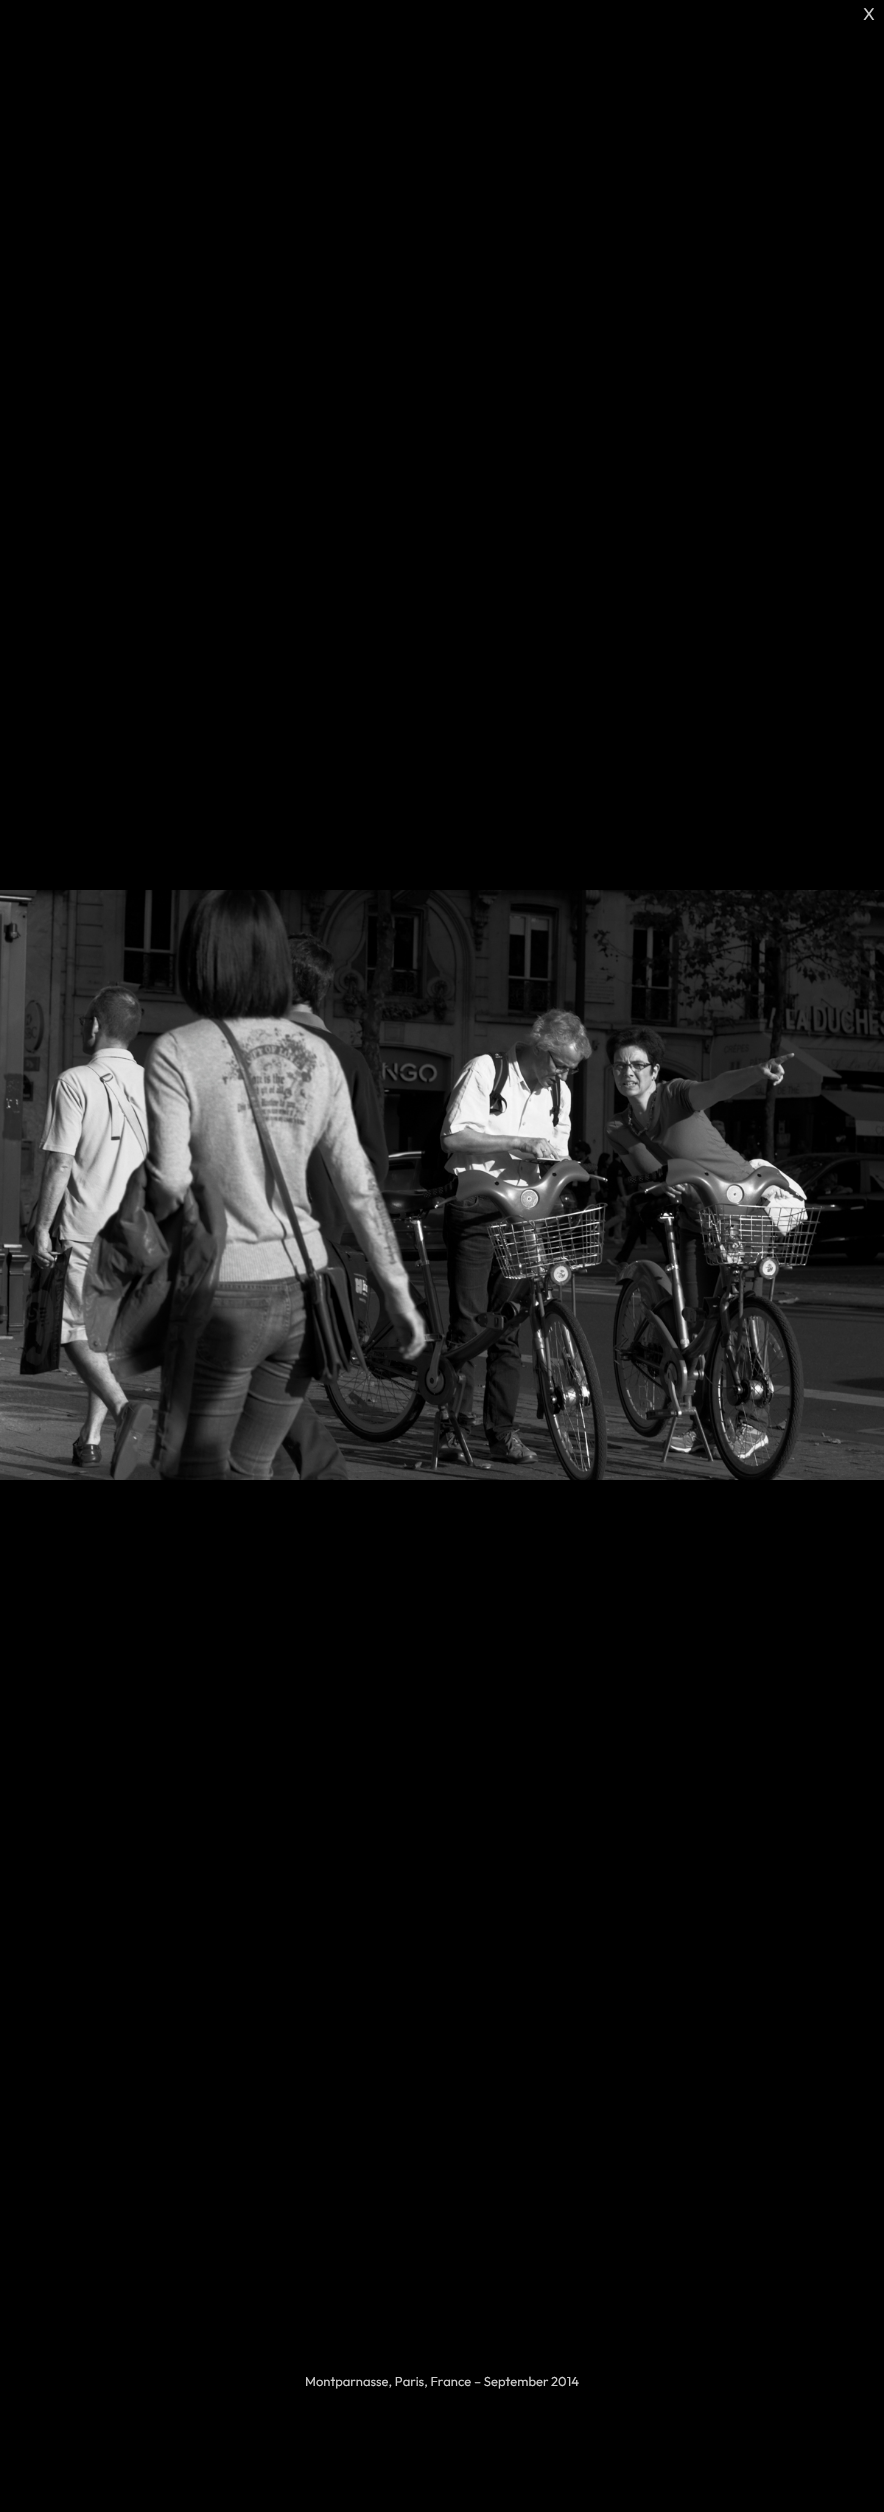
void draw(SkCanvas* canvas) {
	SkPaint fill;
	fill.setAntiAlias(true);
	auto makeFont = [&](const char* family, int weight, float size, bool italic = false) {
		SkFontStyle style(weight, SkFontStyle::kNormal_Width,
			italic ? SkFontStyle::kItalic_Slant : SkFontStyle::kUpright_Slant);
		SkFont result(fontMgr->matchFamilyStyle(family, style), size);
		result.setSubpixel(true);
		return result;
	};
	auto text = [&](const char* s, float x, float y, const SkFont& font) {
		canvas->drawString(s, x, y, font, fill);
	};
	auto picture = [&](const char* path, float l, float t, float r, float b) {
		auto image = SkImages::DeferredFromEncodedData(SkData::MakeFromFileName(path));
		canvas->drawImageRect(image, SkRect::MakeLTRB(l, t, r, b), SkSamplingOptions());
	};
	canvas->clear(0xFF000000);
	picture("image0.png", 0, 890, 884, 1480);
	auto font1 = makeFont("Outfit", 400, 17);
	fill.setColor(0xFFCCCCCC);
	text("X", 863, 20, font1);
	auto font2 = makeFont("Outfit", 400, 13);
	text("Montparnasse, Paris, France – September 2014", 305, 2386, font2);
}
